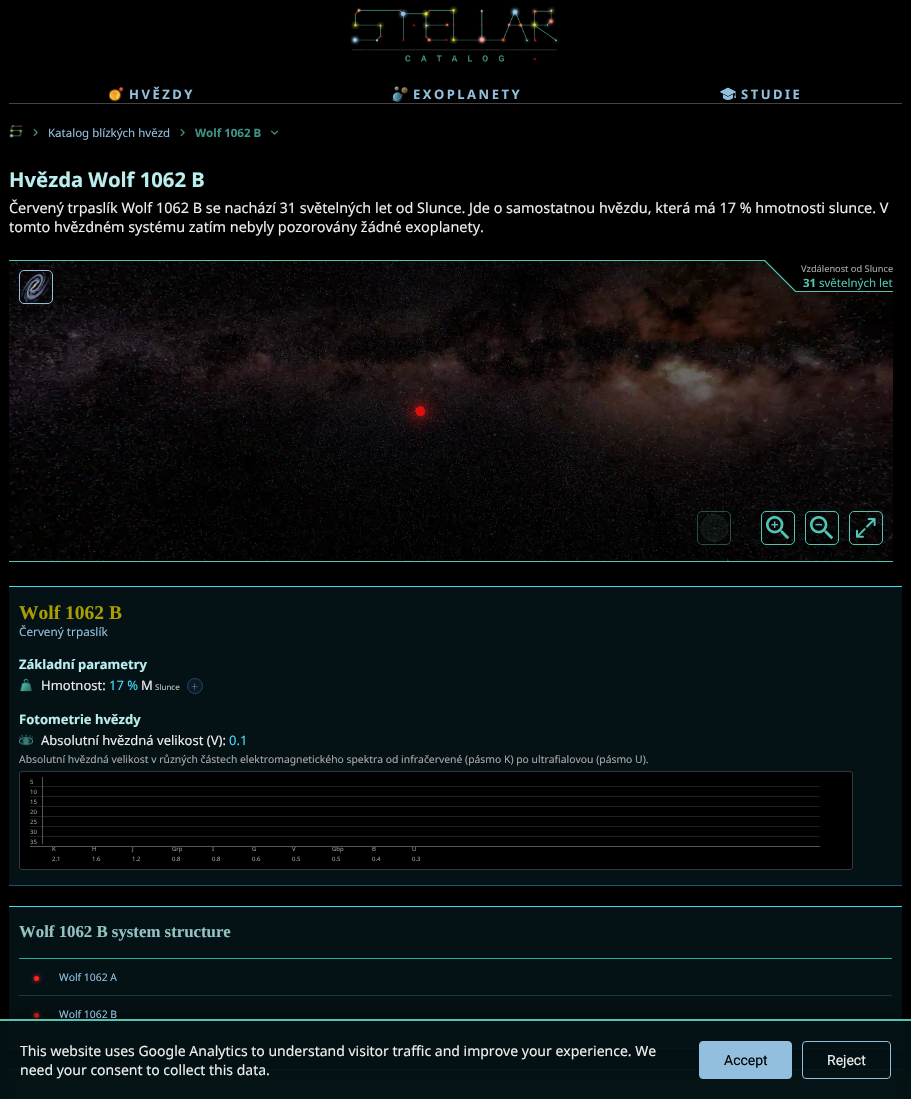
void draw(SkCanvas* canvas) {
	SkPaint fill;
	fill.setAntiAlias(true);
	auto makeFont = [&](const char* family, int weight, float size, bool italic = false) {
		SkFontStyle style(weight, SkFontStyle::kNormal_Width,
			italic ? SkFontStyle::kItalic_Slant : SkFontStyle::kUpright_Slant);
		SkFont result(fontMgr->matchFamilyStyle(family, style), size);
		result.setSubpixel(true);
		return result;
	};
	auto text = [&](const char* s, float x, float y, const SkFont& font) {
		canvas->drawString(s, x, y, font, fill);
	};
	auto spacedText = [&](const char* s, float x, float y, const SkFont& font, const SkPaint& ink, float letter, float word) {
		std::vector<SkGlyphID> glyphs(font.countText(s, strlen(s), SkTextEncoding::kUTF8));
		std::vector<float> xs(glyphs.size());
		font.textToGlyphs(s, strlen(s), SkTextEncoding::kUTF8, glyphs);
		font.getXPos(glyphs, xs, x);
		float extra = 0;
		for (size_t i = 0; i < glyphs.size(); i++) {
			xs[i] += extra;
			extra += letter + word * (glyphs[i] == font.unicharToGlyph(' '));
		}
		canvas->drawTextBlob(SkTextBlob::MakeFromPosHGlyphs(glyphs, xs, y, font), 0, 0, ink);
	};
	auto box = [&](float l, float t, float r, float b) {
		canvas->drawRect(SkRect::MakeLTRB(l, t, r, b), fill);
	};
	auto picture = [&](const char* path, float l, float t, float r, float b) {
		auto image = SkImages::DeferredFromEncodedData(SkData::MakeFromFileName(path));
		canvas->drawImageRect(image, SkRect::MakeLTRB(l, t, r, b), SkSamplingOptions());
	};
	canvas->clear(0xFF000000);
	picture("image0.png", 350, 6, 560, 62);
	fill.setColor(0xFF444444);
	box(9, 103, 902, 104);
	picture("image1.png", 108, 87, 124, 102);
	picture("image2.png", 392, 86, 408, 102);
	picture("image3.png", 720, 87, 736, 100);
	picture("image4.png", 9, 124, 23, 138);
	picture("image5.png", 33, 128, 38, 137);
	picture("image5.png", 180, 128, 185, 137);
	picture("image6.png", 270, 130, 279, 135);
	fill.setColor(0xFF51C4B4);
	box(9, 260, 764, 261);
	picture("image7.png", 9, 261, 893, 561);
	fill.setStyle(SkPaint::kStroke_Style);
	fill.setStrokeWidth(1);
	fill.setColor(0xFF93BFDE);
	canvas->drawRoundRect(SkRect::MakeLTRB(19.5f, 270.5f, 52.5f, 303.5f), 4.5f, 4.5f, fill);
	picture("image8.png", 21, 272, 52, 303);
	picture("image9.png", 764, 260, 796, 292);
	fill.setStyle(SkPaint::kFill_Style);
	fill.setColor(0xFF000000);
	box(796, 261, 893, 291);
	fill.setColor(0xFF51C4B4);
	box(796, 291, 893, 292);
	box(9, 561, 893, 562);
	fill.setColor(0xFF041215);
	box(9, 587, 902, 885);
	fill.setColor(0xFF45D8FB);
	box(9, 586, 902, 587);
	fill.setColor(0xFF185868);
	box(9, 885, 902, 886);
	picture("image10.png", 20, 678, 33, 692);
	fill.setColor(0xFF0E1928);
	canvas->drawCircle(195, 686, 7.5f, fill);
	fill.setStyle(SkPaint::kStroke_Style);
	fill.setColor(0xFF164668);
	canvas->drawCircle(195, 686, 7.5f, fill);
	picture("image11.png", 19, 734, 33, 746);
	fill.setStyle(SkPaint::kFill_Style);
	fill.setColor(0xFF000000);
	canvas->drawRoundRect(SkRect::MakeLTRB(19.5f, 771.5f, 852.5f, 869.5f), 2.5f, 2.5f, fill);
	fill.setStyle(SkPaint::kStroke_Style);
	fill.setColor(0xFF373737);
	canvas->drawRoundRect(SkRect::MakeLTRB(19.5f, 771.5f, 852.5f, 869.5f), 2.5f, 2.5f, fill);
	fill.setStyle(SkPaint::kFill_Style);
	fill.setColor(0xFF1F1F1F);
	box(30, 786, 820, 787);
	box(30, 796, 820, 797);
	box(30, 806, 820, 807);
	box(30, 816, 820, 817);
	box(30, 826, 820, 827);
	box(30, 836, 820, 837);
	fill.setColor(0xFF555555);
	box(42, 777, 43, 844);
	fill.setColor(0xFF041215);
	box(9, 907, 902, 1048);
	fill.setColor(0xFF45D8FB);
	box(9, 906, 902, 907);
	fill.setColor(0xFF185868);
	box(9, 1048, 902, 1049);
	fill.setColor(0xFF19AF9B);
	box(19, 958, 892, 959);
	fill.setColor(0xFF1C3833);
	box(19, 995, 892, 996);
	fill.setColor(0xFFFB2220);
	canvas->drawCircle(36.5f, 978.5f, 2.5f, fill);
	fill.setMaskFilter(SkMaskFilter::MakeBlur(kNormal_SkBlurStyle, 2));
	canvas->drawRoundRect(SkRect::MakeLTRB(34, 976, 39, 981), 2.5f, 2.5f, fill);
	fill.setMaskFilter(nullptr);
	fill.setColor(0xFF1C3833);
	box(19, 1032, 892, 1033);
	fill.setColor(0xFFFB2220);
	canvas->drawCircle(36.5f, 1015.5f, 2.5f, fill);
	fill.setMaskFilter(SkMaskFilter::MakeBlur(kNormal_SkBlurStyle, 2));
	canvas->drawRoundRect(SkRect::MakeLTRB(34, 1013, 39, 1018), 2.5f, 2.5f, fill);
	fill.setMaskFilter(nullptr);
	fill.setColor(0xFF041215);
	box(9, 1070, 902, 1099);
	fill.setColor(0xFF45D8FB);
	box(9, 1069, 902, 1070);
	canvas->save();
	canvas->clipRect(SkRect::MakeLTRB(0, 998, 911, 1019));
	fill.setColor(0x80000000);
	fill.setMaskFilter(SkMaskFilter::MakeBlur(kNormal_SkBlurStyle, 10));
	canvas->drawRect(SkRect::MakeLTRB(0, 1015, 911, 1095), fill);
	fill.setMaskFilter(nullptr);
	canvas->restore();
	{
		const SkColor colors[] = {0xF2041215, 0xFA041215};
		const float stops[] = {0, 1};
		const SkPoint ends[] = {{456, 1021}, {456, 1099}};
		fill.setShader(SkGradientShader::MakeLinear(ends, colors, stops, 2, SkTileMode::kClamp));
		fill.setAlpha(255);
	}
	box(0, 1021, 911, 1099);
	fill.setShader(nullptr);
	fill.setColor(0xFF51C4B4);
	box(0, 1019, 911, 1021);
	fill.setColor(0xFF93BFDE);
	canvas->drawRoundRect(SkRect::MakeLTRB(699.5f, 1041.5f, 791.5f, 1078.5f), 3.5f, 3.5f, fill);
	fill.setStyle(SkPaint::kStroke_Style);
	canvas->drawRoundRect(SkRect::MakeLTRB(699.5f, 1041.5f, 791.5f, 1078.5f), 3.5f, 3.5f, fill);
	canvas->drawRoundRect(SkRect::MakeLTRB(802.5f, 1041.5f, 890.5f, 1078.5f), 3.5f, 3.5f, fill);
	auto font1 = makeFont("Noto Sans", 700, 13);
	fill.setStyle(SkPaint::kFill_Style);
	spacedText("HVĚZDY", 129, 99, font1, fill, 2.5f, 0);
	spacedText("EXOPLANETY", 413, 99, font1, fill, 2.5f, 0);
	spacedText("STUDIE", 741, 99, font1, fill, 2.5f, 0);
	auto font2 = makeFont("Noto Sans", 400, 11.5f);
	text("Katalog blízkých hvězd", 48, 137, font2);
	auto font3 = makeFont("Noto Sans", 700, 11.5f);
	fill.setColor(0xFF3D9387);
	text("Wolf 1062 B", 195, 137, font3);
	auto font4 = makeFont("Noto Sans", 700, 20.25f);
	fill.setColor(0xFFBBEEEE);
	text("Hvězda Wolf 1062 B", 9, 187, font4);
	auto font5 = makeFont("Noto Sans", 400, 14.4f);
	fill.setColor(0xFFEEEEEE);
	text("Červený trpaslík Wolf 1062 B se nachází 31 světelných let od Slunce.", 9, 213, font5);
	text("Jde o samostatnou hvězdu, která má 17 % hmotnosti slunce. V", 469, 213, font5);
	text("tomto hvězdném systému zatím nebyly pozorovány žádné exoplanety.", 9, 232, font5);
	auto font6 = makeFont("Noto Sans", 400, 9.25f);
	fill.setColor(0xFFA8A8A8);
	text("Vzdálenost od Slunce", 801, 272, font6);
	fill.setColor(0xFF51C4B4);
	text("31", 803, 287, font3);
	text("světelných let", 819, 287, font2);
	auto font7 = makeFont("Liberation Serif", 700, 19.5f);
	fill.setColor(0xFFAB9C01);
	text("Wolf 1062 B", 19, 619, font7);
	auto font8 = makeFont("Noto Sans", 400, 11.75f);
	fill.setColor(0xFF93BFDE);
	text("Červený trpaslík", 19, 636, font8);
	fill.setColor(0xFFBBEEEE);
	text("Základní parametry", 19, 669, font1);
	auto font9 = makeFont("Noto Sans", 400, 13);
	fill.setColor(0xFFEEEEEE);
	text("Hmotnost:", 41, 690, font9);
	fill.setColor(0xFF45D8FB);
	text("17 %", 109, 690, font9);
	fill.setColor(0xFFEEEEEE);
	text("M", 141, 690, font9);
	auto font10 = makeFont("Noto Sans", 400, 8);
	fill.setColor(0xFFBFC2C3);
	text("Slunce", 155, 690, font10);
	auto font11 = makeFont("Noto Sans", 100, 13);
	fill.setColor(0xFF93BFDE);
	text("+", 191, 691, font11);
	fill.setColor(0xFFBBEEEE);
	text("Fotometrie hvězdy", 19, 724, font1);
	fill.setColor(0xFFEEEEEE);
	text("Absolutní hvězdná velikost (V):", 41, 745, font9);
	fill.setColor(0xFF45D8FB);
	text("0.1", 229, 745, font9);
	auto font12 = makeFont("Noto Sans", 400, 10.37f);
	fill.setColor(0xFFA8A8A8);
	text("Absolutní hvězdná velikost v různých částech elektromagnetického spektra od infračervené (pásmo K) po ultrafialovou (pásmo U).", 19, 763, font12);
	auto font13 = makeFont("Noto Sans", 400, 6);
	fill.setColor(0xFF999999);
	text("5", 30, 784, font13);
	text("10", 30, 794, font13);
	text("15", 30, 804, font13);
	text("20", 30, 814, font13);
	text("25", 30, 824, font13);
	text("30", 30, 834, font13);
	text("35", 30, 844, font13);
	text("K", 52, 851, font13);
	text("2.1", 52, 861, font13);
	text("H", 92, 851, font13);
	text("1.6", 92, 861, font13);
	text("J", 132, 851, font13);
	text("1.2", 132, 861, font13);
	text("Grp", 172, 851, font13);
	text("0.8", 172, 861, font13);
	text("I", 212, 851, font13);
	text("0.8", 212, 861, font13);
	text("G", 252, 851, font13);
	text("0.6", 252, 861, font13);
	text("V", 292, 851, font13);
	text("0.5", 292, 861, font13);
	text("Gbp", 332, 851, font13);
	text("0.5", 332, 861, font13);
	text("B", 372, 851, font13);
	text("0.4", 372, 861, font13);
	text("U", 412, 851, font13);
	fill.setColor(0xFF555555);
	box(30, 846, 820, 847);
	fill.setColor(0xFF999999);
	text("0.3", 412, 861, font13);
	auto font14 = makeFont("Liberation Serif", 700, 16.8f);
	fill.setColor(0xFF94C1C1);
	text("Wolf 1062 B system structure", 19, 937, font14);
	fill.setColor(0xFF93BFDE);
	text("Wolf 1062 A", 59, 981, font12);
	text("Wolf 1062 B", 59, 1018, font12);
	auto font15 = makeFont("Noto Sans", 400, 14);
	fill.setColor(0xFFEEEEEE);
	text("This website uses Google Analytics to understand visitor traffic and improve your experience. We", 20, 1056, font15);
	text("need your consent to collect this data.", 20, 1075, font15);
	auto font16 = makeFont("Roboto", 400, 14);
	fill.setColor(0xFF000000);
	text("Accept", 724, 1065, font16);
	fill.setColor(0xFFEEEEEE);
	text("Reject", 827, 1065, font16);
}
